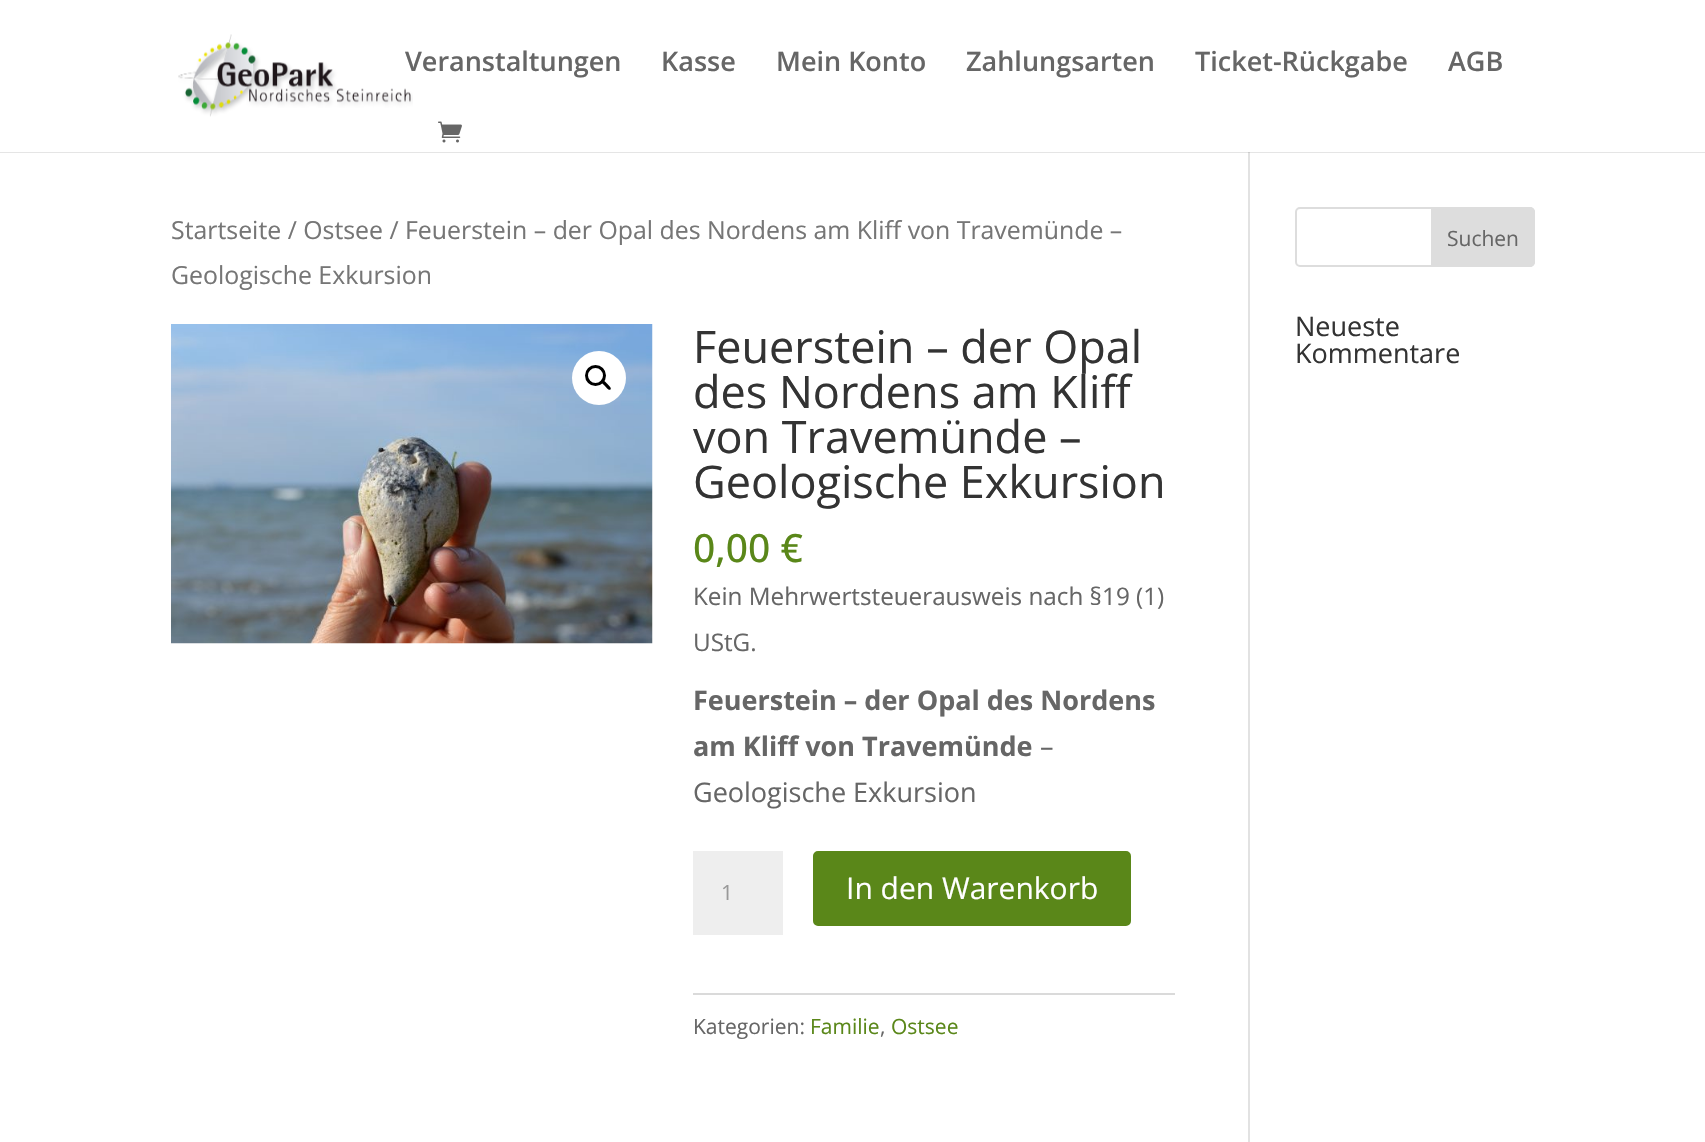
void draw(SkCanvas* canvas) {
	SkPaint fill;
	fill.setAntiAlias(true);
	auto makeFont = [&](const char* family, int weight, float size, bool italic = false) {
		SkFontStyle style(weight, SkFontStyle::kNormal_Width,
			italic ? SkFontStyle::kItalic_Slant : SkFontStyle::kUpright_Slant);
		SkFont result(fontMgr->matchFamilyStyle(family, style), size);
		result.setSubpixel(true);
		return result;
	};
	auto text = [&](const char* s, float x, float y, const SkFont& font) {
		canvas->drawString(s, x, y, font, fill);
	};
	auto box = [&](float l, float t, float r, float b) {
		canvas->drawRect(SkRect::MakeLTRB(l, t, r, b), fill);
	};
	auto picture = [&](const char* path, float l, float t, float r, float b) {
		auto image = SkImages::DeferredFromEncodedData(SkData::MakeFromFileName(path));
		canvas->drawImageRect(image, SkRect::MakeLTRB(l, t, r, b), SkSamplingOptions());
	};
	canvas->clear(0xFFFFFFFF);
	fill.setColor(0xFFE2E2E2);
	box(1248, 152, 1250, 1142);
	fill.setColor(0x1A000000);
	canvas->drawPath(SkPathBuilder().moveTo(0, 152).lineTo(0, 153).lineTo(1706, 153).lineTo(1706, 2).lineTo(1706, 152).close().detach(), fill);
	picture("image0.png", 178, 34, 413, 117);
	picture("image1.png", 438, 121, 462, 143);
	picture("image2.png", 171, 324, 653, 644);
	fill.setColor(0xFFFFFFFF);
	canvas->drawCircle(599, 378, 27, fill);
	fill.setStyle(SkPaint::kStroke_Style);
	fill.setStrokeWidth(3);
	fill.setColor(0xFF000000);
	canvas->drawCircle(595.5f, 375.5f, 9, fill);
	fill.setStyle(SkPaint::kFill_Style);
	canvas->drawPath(SkPathBuilder().moveTo(602, 381).cubicTo(603.5f, 379, 606.5f, 383, 607.5f, 384).cubicTo(608, 385, 612, 387.5f, 610.5f, 389.5f).cubicTo(608.5f, 391, 606, 387, 605, 386).cubicTo(604, 385, 600.5f, 382.5f, 602, 381).close().detach(), fill);
	fill.setColor(0xFFEEEEEE);
	box(693, 851, 783, 935);
	fill.setColor(0xFF5A8719);
	canvas->drawRoundRect(SkRect::MakeLTRB(814.5f, 852.5f, 1129.5f, 924.5f), 3.5f, 3.5f, fill);
	fill.setStyle(SkPaint::kStroke_Style);
	canvas->drawRoundRect(SkRect::MakeLTRB(814.5f, 852.5f, 1129.5f, 924.5f), 3.5f, 3.5f, fill);
	fill.setStyle(SkPaint::kFill_Style);
	fill.setColor(0xFFDADADA);
	box(693, 993, 1175, 995);
	fill.setStyle(SkPaint::kStroke_Style);
	fill.setStrokeWidth(2);
	fill.setColor(0xFFDDDDDD);
	canvas->drawRoundRect(SkRect::MakeLTRB(1296, 208, 1534, 266), 4, 4, fill);
	fill.setStyle(SkPaint::kFill_Style);
	canvas->drawPath(SkPathBuilder().moveTo(1432, 208).lineTo(1530, 208).cubicTo(1532, 208, 1534, 210, 1534, 212).lineTo(1534, 262).cubicTo(1534, 264, 1532, 266, 1530, 266).lineTo(1432, 266).close().detach(), fill);
	fill.setStyle(SkPaint::kStroke_Style);
	canvas->drawPath(SkPathBuilder().moveTo(1432, 208).lineTo(1530, 208).cubicTo(1532, 208, 1534, 210, 1534, 212).lineTo(1534, 262).cubicTo(1534, 264, 1532, 266, 1530, 266).lineTo(1432, 266).close().detach(), fill);
	auto font1 = makeFont("Open Sans", 600, 27);
	fill.setStyle(SkPaint::kFill_Style);
	fill.setColor(0xFF666666);
	text("Veranstaltungen", 405, 71, font1);
	text("Kasse", 661, 71, font1);
	text("Mein Konto", 776, 71, font1);
	text("Zahlungsarten", 966, 71, font1);
	text("Ticket-Rückgabe", 1195, 71, font1);
	text("AGB", 1448, 71, font1);
	auto font2 = makeFont("Open Sans", 400, 24.85f);
	fill.setColor(0xFF767676);
	text("Startseite / Ostsee / Feuerstein – der Opal des Nordens am Kliff von Travemünde –", 171, 239, font2);
	text("Geologische Exkursion", 171, 284, font2);
	auto font3 = makeFont("Open Sans", 400, 45);
	fill.setColor(0xFF333333);
	text("Feuerstein – der Opal", 693, 363, font3);
	text("des Nordens am Kliff", 693, 408, font3);
	text("von Travemünde –", 693, 453, font3);
	text("Geologische Exkursion", 693, 498, font3);
	auto font4 = makeFont("Open Sans", 500, 39);
	fill.setColor(0xFF5A8719);
	text("0,00 €", 693, 562, font4);
	auto font5 = makeFont("Open Sans", 400, 24.25f);
	fill.setColor(0xFF666666);
	text("Kein Mehrwertsteuerausweis nach §19 (1)", 693, 605, font5);
	text("UStG.", 693, 651, font5);
	auto font6 = makeFont("Open Sans", 700, 27);
	text("Feuerstein – der Opal des Nordens", 693, 710, font6);
	text("am Kliff von Travemünde", 693, 756, font6);
	auto font7 = makeFont("Open Sans", 400, 27);
	text("–", 1040, 756, font7);
	text("Geologische Exkursion", 693, 802, font7);
	auto font8 = makeFont("Open Sans", 400, 21);
	fill.setColor(0xFF999999);
	text("1", 721, 900, font8);
	auto font9 = makeFont("Open Sans", 400, 30);
	fill.setColor(0xFFFFFFFF);
	text("In den Warenkorb", 846, 899, font9);
	fill.setColor(0xFF666666);
	text("Kategorien:", 693, 1034, font8);
	fill.setColor(0xFF5A8719);
	text("Familie", 810, 1034, font8);
	fill.setColor(0xFF666666);
	text(",", 880, 1034, font8);
	fill.setColor(0xFF5A8719);
	text("Ostsee", 891, 1034, font8);
	fill.setColor(0xFF666666);
	text("Suchen", 1447, 246, font8);
	fill.setColor(0xFF333333);
	text("Neueste", 1295, 336, font7);
	text("Kommentare", 1295, 363, font7);
}
